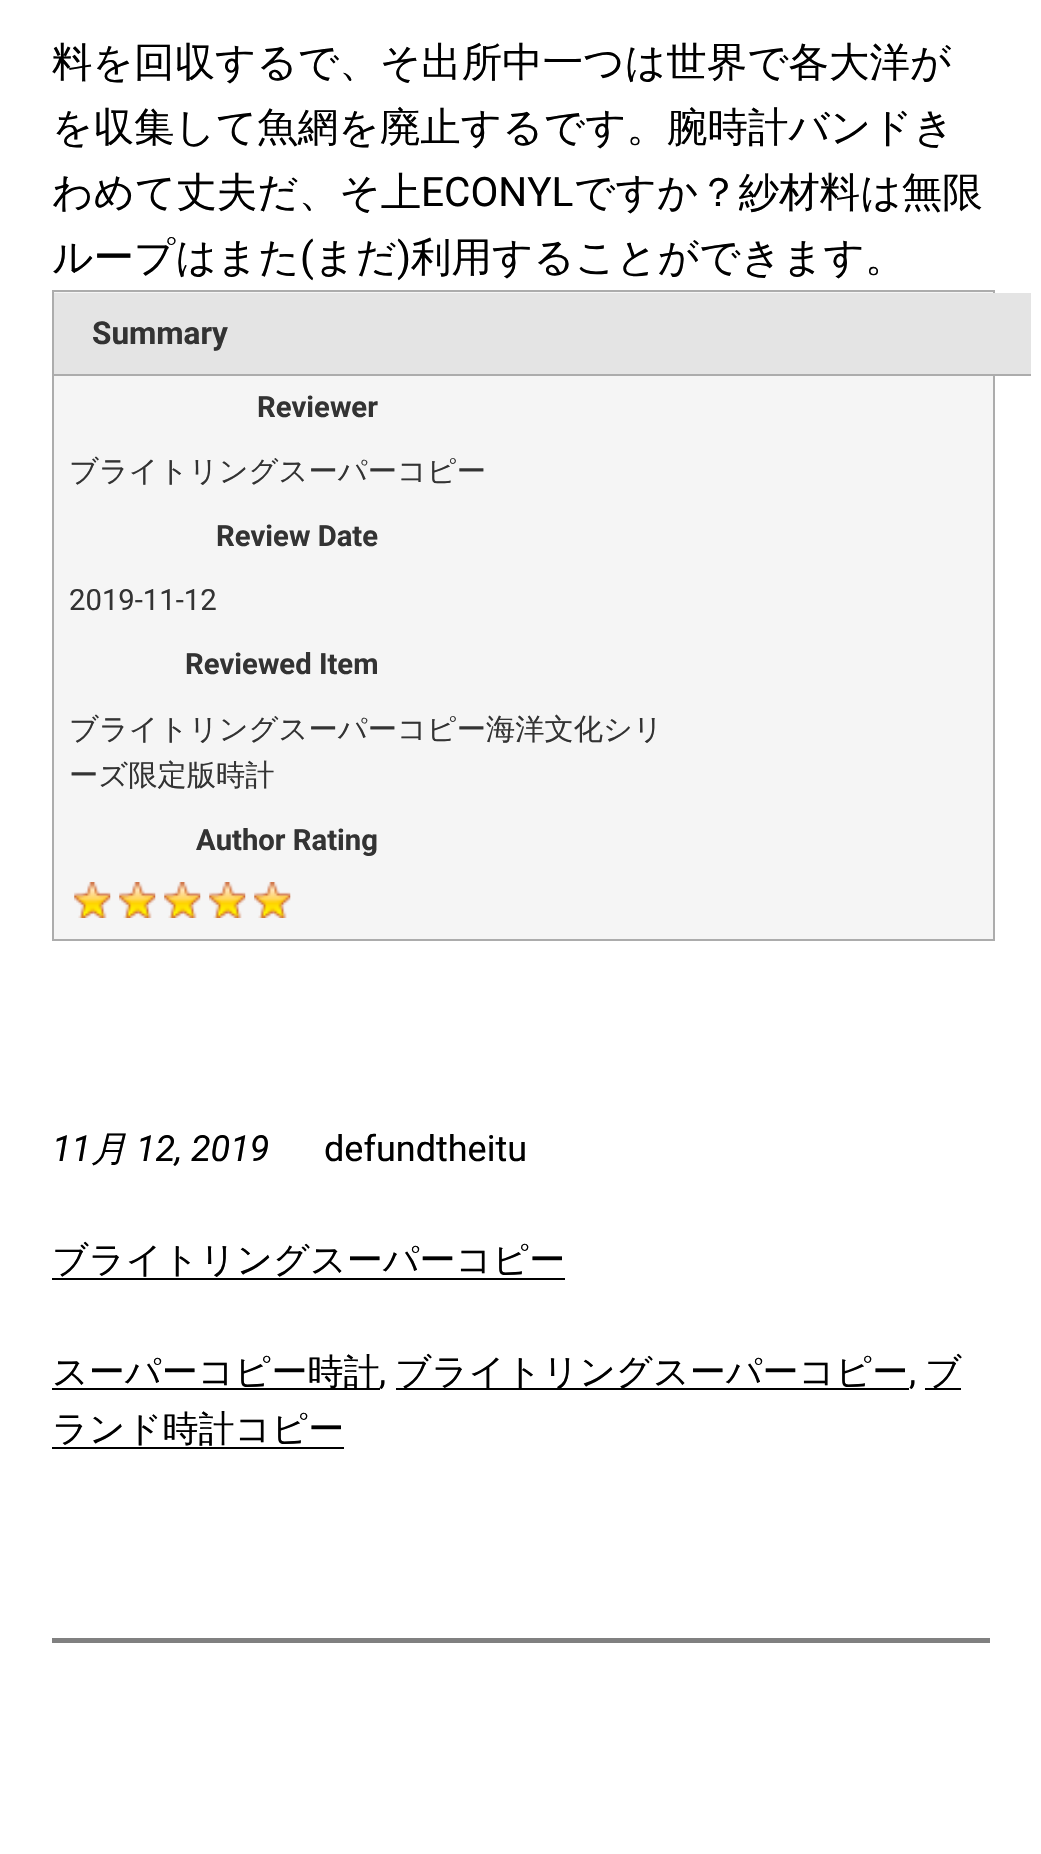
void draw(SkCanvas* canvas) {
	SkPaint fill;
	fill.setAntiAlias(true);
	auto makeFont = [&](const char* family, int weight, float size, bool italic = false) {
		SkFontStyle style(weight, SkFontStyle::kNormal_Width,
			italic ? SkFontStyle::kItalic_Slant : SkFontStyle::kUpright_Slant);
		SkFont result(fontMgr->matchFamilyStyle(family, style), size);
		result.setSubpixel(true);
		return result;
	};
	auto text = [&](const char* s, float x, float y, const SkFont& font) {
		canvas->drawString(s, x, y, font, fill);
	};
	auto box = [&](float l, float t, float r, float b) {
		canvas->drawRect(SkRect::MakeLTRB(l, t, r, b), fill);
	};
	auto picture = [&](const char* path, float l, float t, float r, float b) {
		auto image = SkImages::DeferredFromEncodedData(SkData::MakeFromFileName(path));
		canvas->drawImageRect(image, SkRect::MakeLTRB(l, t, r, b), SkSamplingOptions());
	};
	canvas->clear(0xFFFFFFFF);
	fill.setColor(0xFFF5F5F5);
	canvas->drawRect(SkRect::MakeLTRB(53, 291, 994, 940), fill);
	fill.setStyle(SkPaint::kStroke_Style);
	fill.setStrokeWidth(2);
	fill.setColor(0xFFACACAC);
	canvas->drawRect(SkRect::MakeLTRB(53, 291, 994, 940), fill);
	fill.setStyle(SkPaint::kFill_Style);
	fill.setColor(0xFFE4E4E4);
	box(54, 293, 1031, 374);
	fill.setColor(0xFFACACAC);
	box(54, 374, 1031, 376);
	picture("image0.png", 74, 882, 111, 918);
	picture("image0.png", 119, 882, 156, 918);
	picture("image0.png", 164, 882, 201, 918);
	picture("image0.png", 209, 882, 246, 918);
	picture("image0.png", 254, 882, 291, 918);
	fill.setColor(0xFF000000);
	box(52, 1278, 565, 1280);
	box(52, 1388, 380, 1390);
	box(396, 1388, 909, 1390);
	box(925, 1388, 961, 1390);
	box(52, 1447, 344, 1449);
	fill.setColor(0xFF808080);
	box(52, 1638, 990, 1643);
	auto font1 = makeFont("WenQuanYi Zen Hei", 500, 40.5f);
	fill.setColor(0xFF000000);
	text("料を回収するで、そ出所中一つは世界で各大洋が", 52, 76, font1);
	text("を収集して魚網を廃止するです。腕時計バンドき", 52, 141, font1);
	text("わめて丈夫だ、そ上", 52, 206, font1);
	auto font2 = makeFont("Roboto", 400, 40.5f);
	text("ECONYL", 421, 206, font2);
	text("ですか？紗材料は無限", 574, 206, font1);
	text("ループはまた", 52, 271, font1);
	text("(", 300, 271, font2);
	text("まだ", 314, 271, font1);
	text(")", 397, 271, font2);
	text("利用することができます。", 411, 271, font1);
	auto font3 = makeFont("Roboto", 700, 31.5f);
	fill.setColor(0xFF333333);
	text("Summary", 92, 344, font3);
	auto font4 = makeFont("Roboto", 700, 29.25f);
	text("Reviewer", 257, 417, font4);
	auto font5 = makeFont("WenQuanYi Zen Hei", 500, 29.25f);
	text("ブライトリングスーパーコピー", 69, 481, font5);
	text("Review Date", 216, 546, font4);
	auto font6 = makeFont("Roboto", 400, 29.25f);
	text("2019-11-12", 69, 610, font6);
	text("Reviewed Item", 185, 674, font4);
	text("ブライトリングスーパーコピー海洋文化シリ", 69, 739, font5);
	text("ーズ限定版時計", 69, 785, font5);
	text("Author Rating", 196, 850, font4);
	auto font7 = makeFont("Roboto", 400, 36, true);
	fill.setColor(0xFF000000);
	text("11", 52, 1161, font7);
	auto font8 = makeFont("WenQuanYi Zen Hei", 500, 36, true);
	text("月", 91, 1161, font8);
	text("12, 2019", 136, 1161, font7);
	auto font9 = makeFont("Roboto", 400, 36);
	text("defundtheitu", 324, 1161, font9);
	auto font10 = makeFont("WenQuanYi Zen Hei", 500, 36);
	text("ブライトリングスーパーコピー", 52, 1272, font10);
	text("スーパーコピー時計", 52, 1384, font10);
	text(",", 379, 1384, font9);
	text("ブライトリングスーパーコピー", 395, 1384, font10);
	text(",", 909, 1384, font9);
	text("ブ", 925, 1384, font10);
	text("ランド時計コピー", 52, 1441, font10);
}
